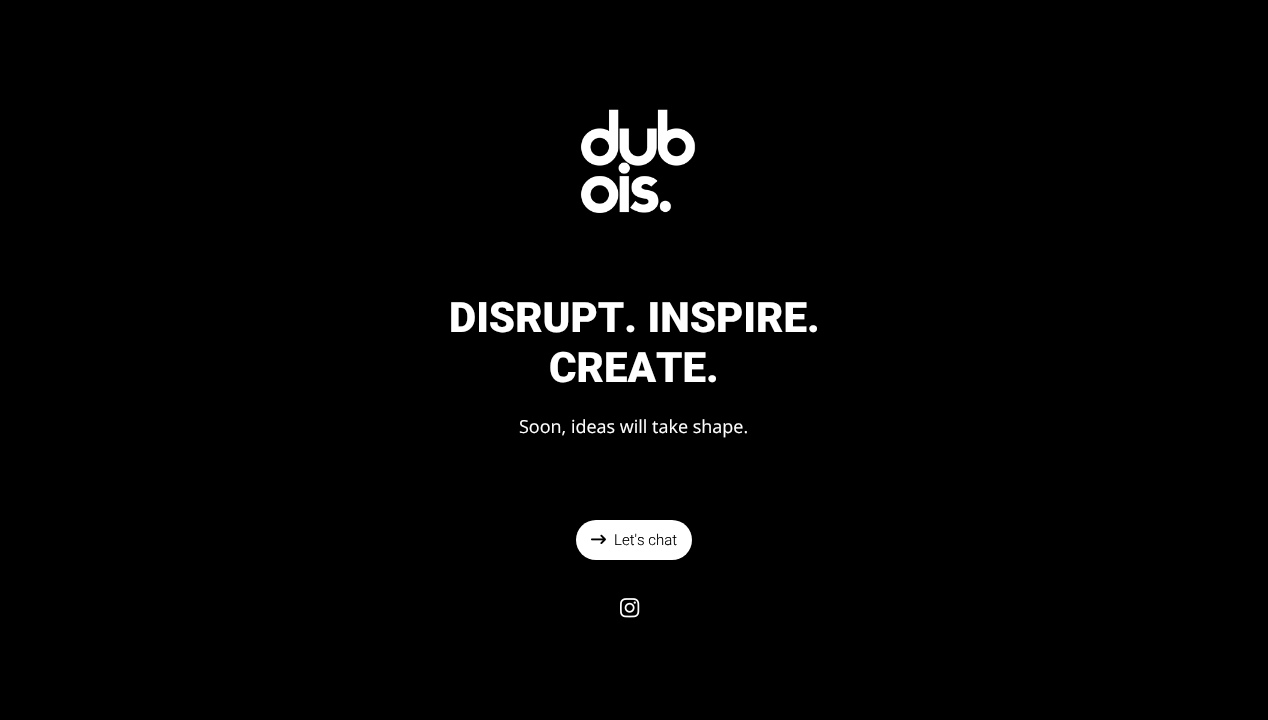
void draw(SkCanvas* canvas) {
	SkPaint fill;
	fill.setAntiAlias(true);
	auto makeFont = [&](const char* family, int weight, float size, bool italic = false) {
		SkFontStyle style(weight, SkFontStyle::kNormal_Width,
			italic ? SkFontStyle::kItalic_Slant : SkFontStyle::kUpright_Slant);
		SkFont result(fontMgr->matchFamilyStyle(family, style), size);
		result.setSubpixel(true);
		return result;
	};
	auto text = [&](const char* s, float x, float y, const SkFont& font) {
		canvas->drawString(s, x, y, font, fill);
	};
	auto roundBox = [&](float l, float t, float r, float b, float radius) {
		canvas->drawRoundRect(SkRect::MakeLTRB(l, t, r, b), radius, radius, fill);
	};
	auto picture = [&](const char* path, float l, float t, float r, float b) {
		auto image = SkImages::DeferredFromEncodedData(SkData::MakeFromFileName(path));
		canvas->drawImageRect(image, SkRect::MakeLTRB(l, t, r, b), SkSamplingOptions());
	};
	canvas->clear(0xFF000000);
	picture("image0.png", 580, 109, 696, 213);
	fill.setColor(0xFFFFFFFF);
	roundBox(576, 520, 692, 560, 20);
	picture("image1.png", 591, 534, 606, 544);
	picture("image2.png", 620, 598, 640, 618);
	auto font1 = makeFont("Roboto", 900, 42);
	text("DISRUPT. INSPIRE.", 449, 332, font1);
	text("CREATE.", 549, 382, font1);
	auto font2 = makeFont("Open Sans", 400, 18);
	text("Soon, ideas will take shape.", 519, 433, font2);
	auto font3 = makeFont("Roboto", 300, 15);
	fill.setColor(0xFF000000);
	text("Let's chat", 614, 545, font3);
}
